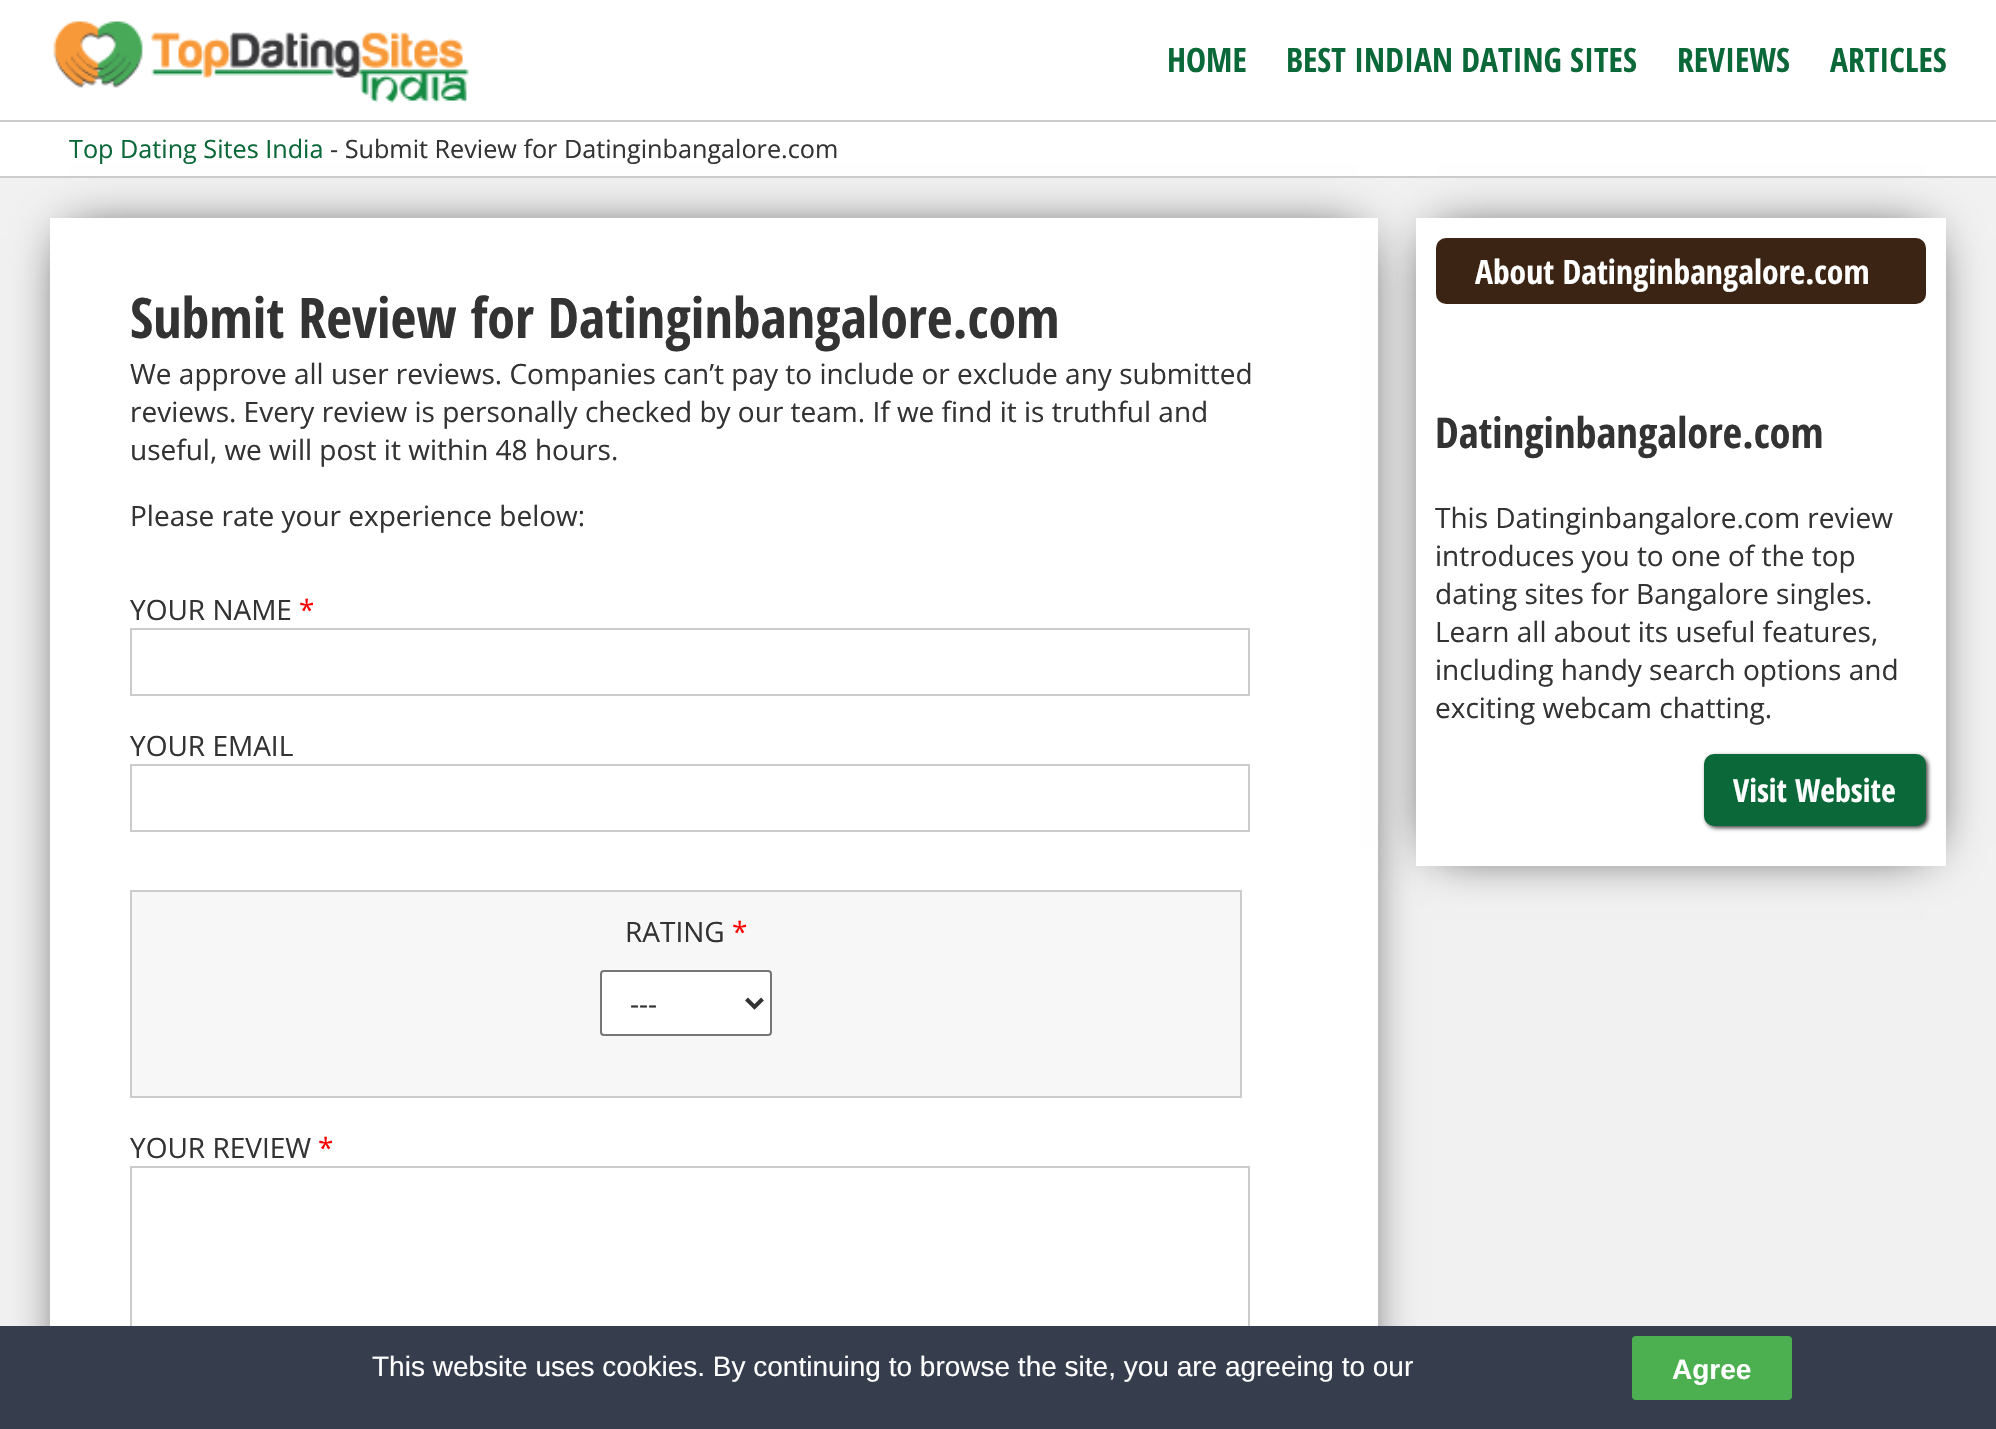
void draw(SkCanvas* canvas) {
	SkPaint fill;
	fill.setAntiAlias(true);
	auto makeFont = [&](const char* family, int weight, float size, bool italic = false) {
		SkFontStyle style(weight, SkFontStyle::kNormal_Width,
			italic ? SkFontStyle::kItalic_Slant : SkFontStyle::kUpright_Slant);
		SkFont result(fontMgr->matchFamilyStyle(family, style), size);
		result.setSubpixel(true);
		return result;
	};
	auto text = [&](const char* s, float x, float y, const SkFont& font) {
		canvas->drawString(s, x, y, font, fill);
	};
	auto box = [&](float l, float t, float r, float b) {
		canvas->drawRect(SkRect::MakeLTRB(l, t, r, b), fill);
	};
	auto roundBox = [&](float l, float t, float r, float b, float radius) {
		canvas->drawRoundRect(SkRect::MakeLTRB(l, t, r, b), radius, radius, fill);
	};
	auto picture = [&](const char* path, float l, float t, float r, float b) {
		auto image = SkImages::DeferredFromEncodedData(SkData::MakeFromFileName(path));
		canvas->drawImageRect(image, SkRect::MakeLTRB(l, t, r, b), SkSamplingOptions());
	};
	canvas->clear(0xFFF1F1F1);
	fill.setColor(0xFFFFFFFF);
	box(0, 0, 1996, 120);
	fill.setColor(0xFFCCCCCC);
	box(0, 120, 1996, 122);
	picture("image0.png", 53, 21, 469, 103);
	fill.setColor(0xFFFFFFFF);
	box(0, 122, 1996, 176);
	fill.setColor(0xFFCCCCCC);
	box(0, 176, 1996, 178);
	fill.setColor(0xFF000000);
	fill.setMaskFilter(SkMaskFilter::MakeBlur(kNormal_SkBlurStyle, 25));
	canvas->drawRect(SkRect::MakeLTRB(70, 238, 1358, 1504), fill);
	fill.setMaskFilter(nullptr);
	fill.setColor(0xFFFFFFFF);
	box(50, 218, 1378, 1326);
	fill.setStyle(SkPaint::kStroke_Style);
	fill.setStrokeWidth(2);
	fill.setColor(0xFFCCCCCC);
	canvas->drawRect(SkRect::MakeLTRB(131, 629, 1249, 695), fill);
	canvas->drawRect(SkRect::MakeLTRB(131, 765, 1249, 831), fill);
	fill.setStyle(SkPaint::kFill_Style);
	fill.setColor(0xFFF7F7F7);
	canvas->drawRect(SkRect::MakeLTRB(131, 891, 1241, 1097), fill);
	fill.setStyle(SkPaint::kStroke_Style);
	fill.setColor(0xFFCCCCCC);
	canvas->drawRect(SkRect::MakeLTRB(131, 891, 1241, 1097), fill);
	fill.setStyle(SkPaint::kFill_Style);
	fill.setColor(0xFFFFFFFF);
	canvas->drawRoundRect(SkRect::MakeLTRB(601, 971, 771, 1035), 3, 3, fill);
	fill.setStyle(SkPaint::kStroke_Style);
	fill.setColor(0xFF767676);
	canvas->drawRoundRect(SkRect::MakeLTRB(601, 971, 771, 1035), 3, 3, fill);
	fill.setStrokeWidth(4);
	fill.setColor(0xFF333333);
	canvas->drawPath(SkPathBuilder().moveTo(746.5f, 999).lineTo(754.5f, 1007).lineTo(762.5f, 999).detach(), fill);
	fill.setStrokeWidth(2);
	fill.setColor(0xFFCCCCCC);
	canvas->drawRect(SkRect::MakeLTRB(131, 1167, 1249, 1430), fill);
	fill.setStyle(SkPaint::kFill_Style);
	fill.setColor(0xFF000000);
	fill.setMaskFilter(SkMaskFilter::MakeBlur(kNormal_SkBlurStyle, 25));
	canvas->drawRect(SkRect::MakeLTRB(1436, 238, 1926, 846), fill);
	fill.setMaskFilter(nullptr);
	fill.setColor(0xFFFFFFFF);
	box(1416, 218, 1946, 866);
	fill.setColor(0xFF3C2415);
	roundBox(1436, 238, 1926, 304, 10);
	fill.setColor(0xBF000000);
	fill.setMaskFilter(SkMaskFilter::MakeBlur(kNormal_SkBlurStyle, 2));
	canvas->drawRoundRect(SkRect::MakeLTRB(1706, 756, 1928, 828), 10, 10, fill);
	fill.setMaskFilter(nullptr);
	fill.setColor(0xFF0B6838);
	roundBox(1704, 754, 1926, 826, 10);
	fill.setColor(0xFF363D4D);
	box(0, 1326, 1996, 1429);
	fill.setColor(0xFF4CAF50);
	roundBox(1632, 1336, 1792, 1400, 4);
	auto font1 = makeFont("Open Sans Condensed", 700, 33.6f);
	fill.setColor(0xFF0B6838);
	text("HOME", 1167, 72, font1);
	text("BEST INDIAN DATING SITES", 1286, 72, font1);
	text("REVIEWS", 1677, 72, font1);
	text("ARTICLES", 1830, 72, font1);
	auto font2 = makeFont("Open Sans", 400, 25.2f);
	text("Top Dating Sites India", 69, 158, font2);
	fill.setColor(0xFF333333);
	text("- Submit Review for Datinginbangalore.com", 330, 158, font2);
	auto font3 = makeFont("Open Sans Condensed", 700, 56);
	text("Submit Review for Datinginbangalore.com", 130, 338, font3);
	auto font4 = makeFont("Open Sans", 400, 28);
	text("We approve all user reviews. Companies can’t pay to include or exclude any submitted", 130, 384, font4);
	text("reviews. Every review is personally checked by our team. If we find it is truthful and", 130, 422, font4);
	text("useful, we will post it within 48 hours.", 130, 460, font4);
	text("Please rate your experience below:", 130, 526, font4);
	text("YOUR NAME", 130, 620, font4);
	fill.setColor(0xFFFF0000);
	text("*", 299, 620, font4);
	fill.setColor(0xFF333333);
	text("YOUR EMAIL", 130, 756, font4);
	text("RATING", 625, 942, font4);
	fill.setColor(0xFFFF0000);
	text("*", 732, 942, font4);
	fill.setColor(0xFF333333);
	text("---", 630, 1014, font4);
	text("YOUR REVIEW", 130, 1158, font4);
	fill.setColor(0xFFFF0000);
	text("*", 318, 1158, font4);
	fill.setColor(0xFFFFFFFF);
	text("About Datinginbangalore.com", 1475, 284, font1);
	auto font5 = makeFont("Open Sans Condensed", 700, 42.5f);
	fill.setColor(0xFF333333);
	text("Datinginbangalore.com", 1435, 448, font5);
	text("This Datinginbangalore.com review", 1435, 528, font4);
	text("introduces you to one of the top", 1435, 566, font4);
	text("dating sites for Bangalore singles.", 1435, 604, font4);
	text("Learn all about its useful features,", 1435, 642, font4);
	text("including handy search options and", 1435, 680, font4);
	text("exciting webcam chatting.", 1435, 718, font4);
	auto font6 = makeFont("Open Sans Condensed", 700, 32);
	fill.setColor(0xFFFFFFFF);
	text("Visit Website", 1733, 802, font6);
	auto font7 = makeFont("Liberation Sans", 400, 28);
	text("This website uses cookies. By continuing to browse the site, you are agreeing to our", 372, 1376, font7);
	auto font8 = makeFont("Liberation Sans", 700, 28);
	text("Agree", 1672, 1379, font8);
}
